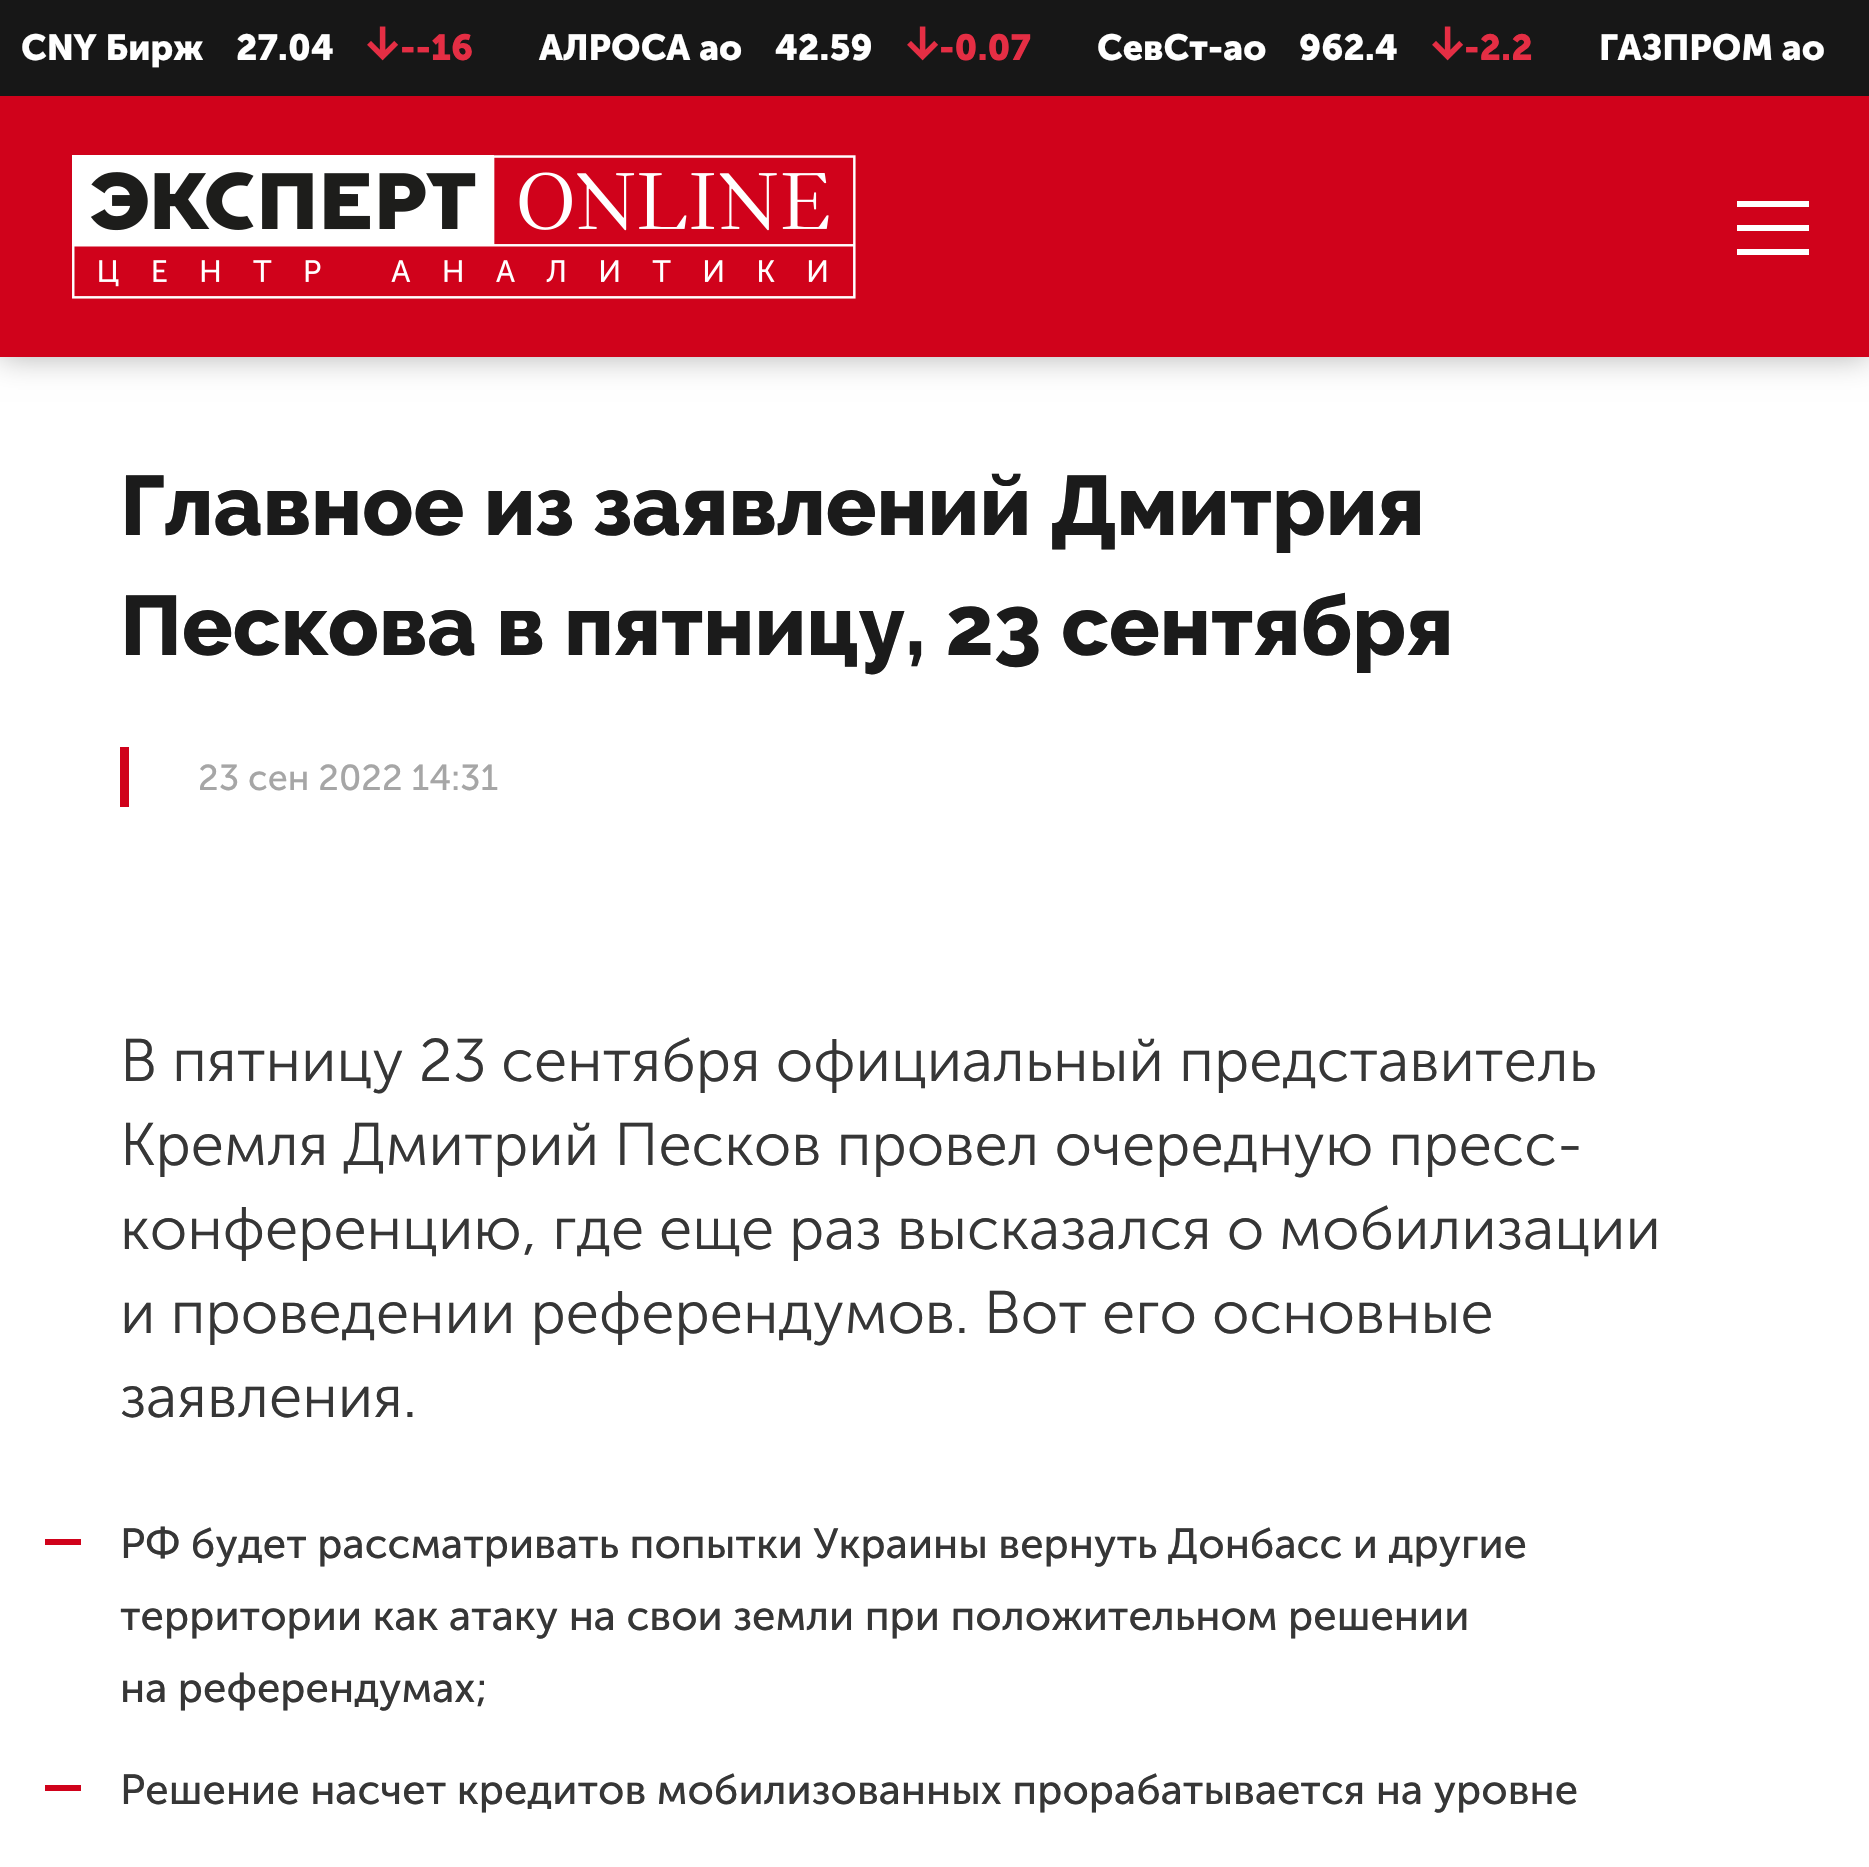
void draw(SkCanvas* canvas) {
	SkPaint fill;
	fill.setAntiAlias(true);
	auto makeFont = [&](const char* family, int weight, float size, bool italic = false) {
		SkFontStyle style(weight, SkFontStyle::kNormal_Width,
			italic ? SkFontStyle::kItalic_Slant : SkFontStyle::kUpright_Slant);
		SkFont result(fontMgr->matchFamilyStyle(family, style), size);
		result.setSubpixel(true);
		return result;
	};
	auto text = [&](const char* s, float x, float y, const SkFont& font) {
		canvas->drawString(s, x, y, font, fill);
	};
	auto box = [&](float l, float t, float r, float b) {
		canvas->drawRect(SkRect::MakeLTRB(l, t, r, b), fill);
	};
	auto picture = [&](const char* path, float l, float t, float r, float b) {
		auto image = SkImages::DeferredFromEncodedData(SkData::MakeFromFileName(path));
		canvas->drawImageRect(image, SkRect::MakeLTRB(l, t, r, b), SkSamplingOptions());
	};
	canvas->clear(0xFFFFFFFF);
	fill.setColor(0x4D000000);
	fill.setMaskFilter(SkMaskFilter::MakeBlur(kNormal_SkBlurStyle, 15));
	canvas->drawRect(SkRect::MakeLTRB(0, 0, 1869, 357), fill);
	fill.setMaskFilter(nullptr);
	fill.setColor(0xFF171717);
	box(0, 0, 1869, 96);
	picture("image0.png", 367, 26, 399, 61);
	picture("image0.png", 907, 26, 939, 61);
	picture("image0.png", 1432, 26, 1464, 61);
	fill.setColor(0xFFD0021B);
	box(0, 96, 1869, 357);
	picture("image1.png", 72, 155, 856, 299);
	fill.setColor(0xFFFFFFFF);
	box(1737, 225, 1809, 231);
	box(1737, 201, 1809, 207);
	box(1737, 249, 1809, 255);
	fill.setColor(0xFFD0021B);
	box(120, 747, 129, 807);
	box(45, 1539, 81, 1545);
	box(45, 1785, 81, 1791);
	auto font1 = makeFont("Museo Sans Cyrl", 700, 36);
	fill.setColor(0xFFFFFFFF);
	text("CNY Бирж", 21, 60, font1);
	text("27.04", 236, 60, font1);
	fill.setColor(0xFFE52E44);
	text("--16", 400, 60, font1);
	fill.setColor(0xFFFFFFFF);
	text("АЛРОСА ао", 539, 60, font1);
	text("42.59", 775, 60, font1);
	fill.setColor(0xFFE52E44);
	text("-0.07", 939, 60, font1);
	fill.setColor(0xFFFFFFFF);
	text("СевСт-ао", 1097, 60, font1);
	text("962.4", 1299, 60, font1);
	fill.setColor(0xFFE52E44);
	text("-2.2", 1464, 60, font1);
	fill.setColor(0xFFFFFFFF);
	text("ГАЗПРОМ ао", 1599, 60, font1);
	auto font2 = makeFont("Raleway", 800, 84);
	fill.setColor(0xFF1B1B1B);
	text("Главное из заявлений Дмитрия", 120, 535, font2);
	text("Пескова в пятницу, 23 сентября", 120, 655, font2);
	auto font3 = makeFont("Museo Sans Cyrl", 400, 36);
	fill.setColor(0xFFA6A6A6);
	text("23 сен 2022 14:31", 198, 790, font3);
	auto font4 = makeFont("Museo Sans Cyrl", 300, 60);
	fill.setColor(0xFF363636);
	text("В пятницу 23 сентября официальный представитель", 120, 1081, font4);
	text("Кремля Дмитрий Песков провел очередную пресс-", 120, 1165, font4);
	text("конференцию, где еще раз высказался о мобилизации", 120, 1249, font4);
	text("и проведении референдумов. Вот его основные", 120, 1333, font4);
	text("заявления.", 120, 1417, font4);
	auto font5 = makeFont("Museo Sans Cyrl", 400, 42);
	text("РФ будет рассматривать попытки Украины вернуть Донбасс и другие", 120, 1558, font5);
	text("территории как атаку на свои земли при положительном решении", 120, 1630, font5);
	text("на референдумах;", 120, 1702, font5);
	text("Решение насчет кредитов мобилизованных прорабатывается на уровне", 120, 1804, font5);
}
